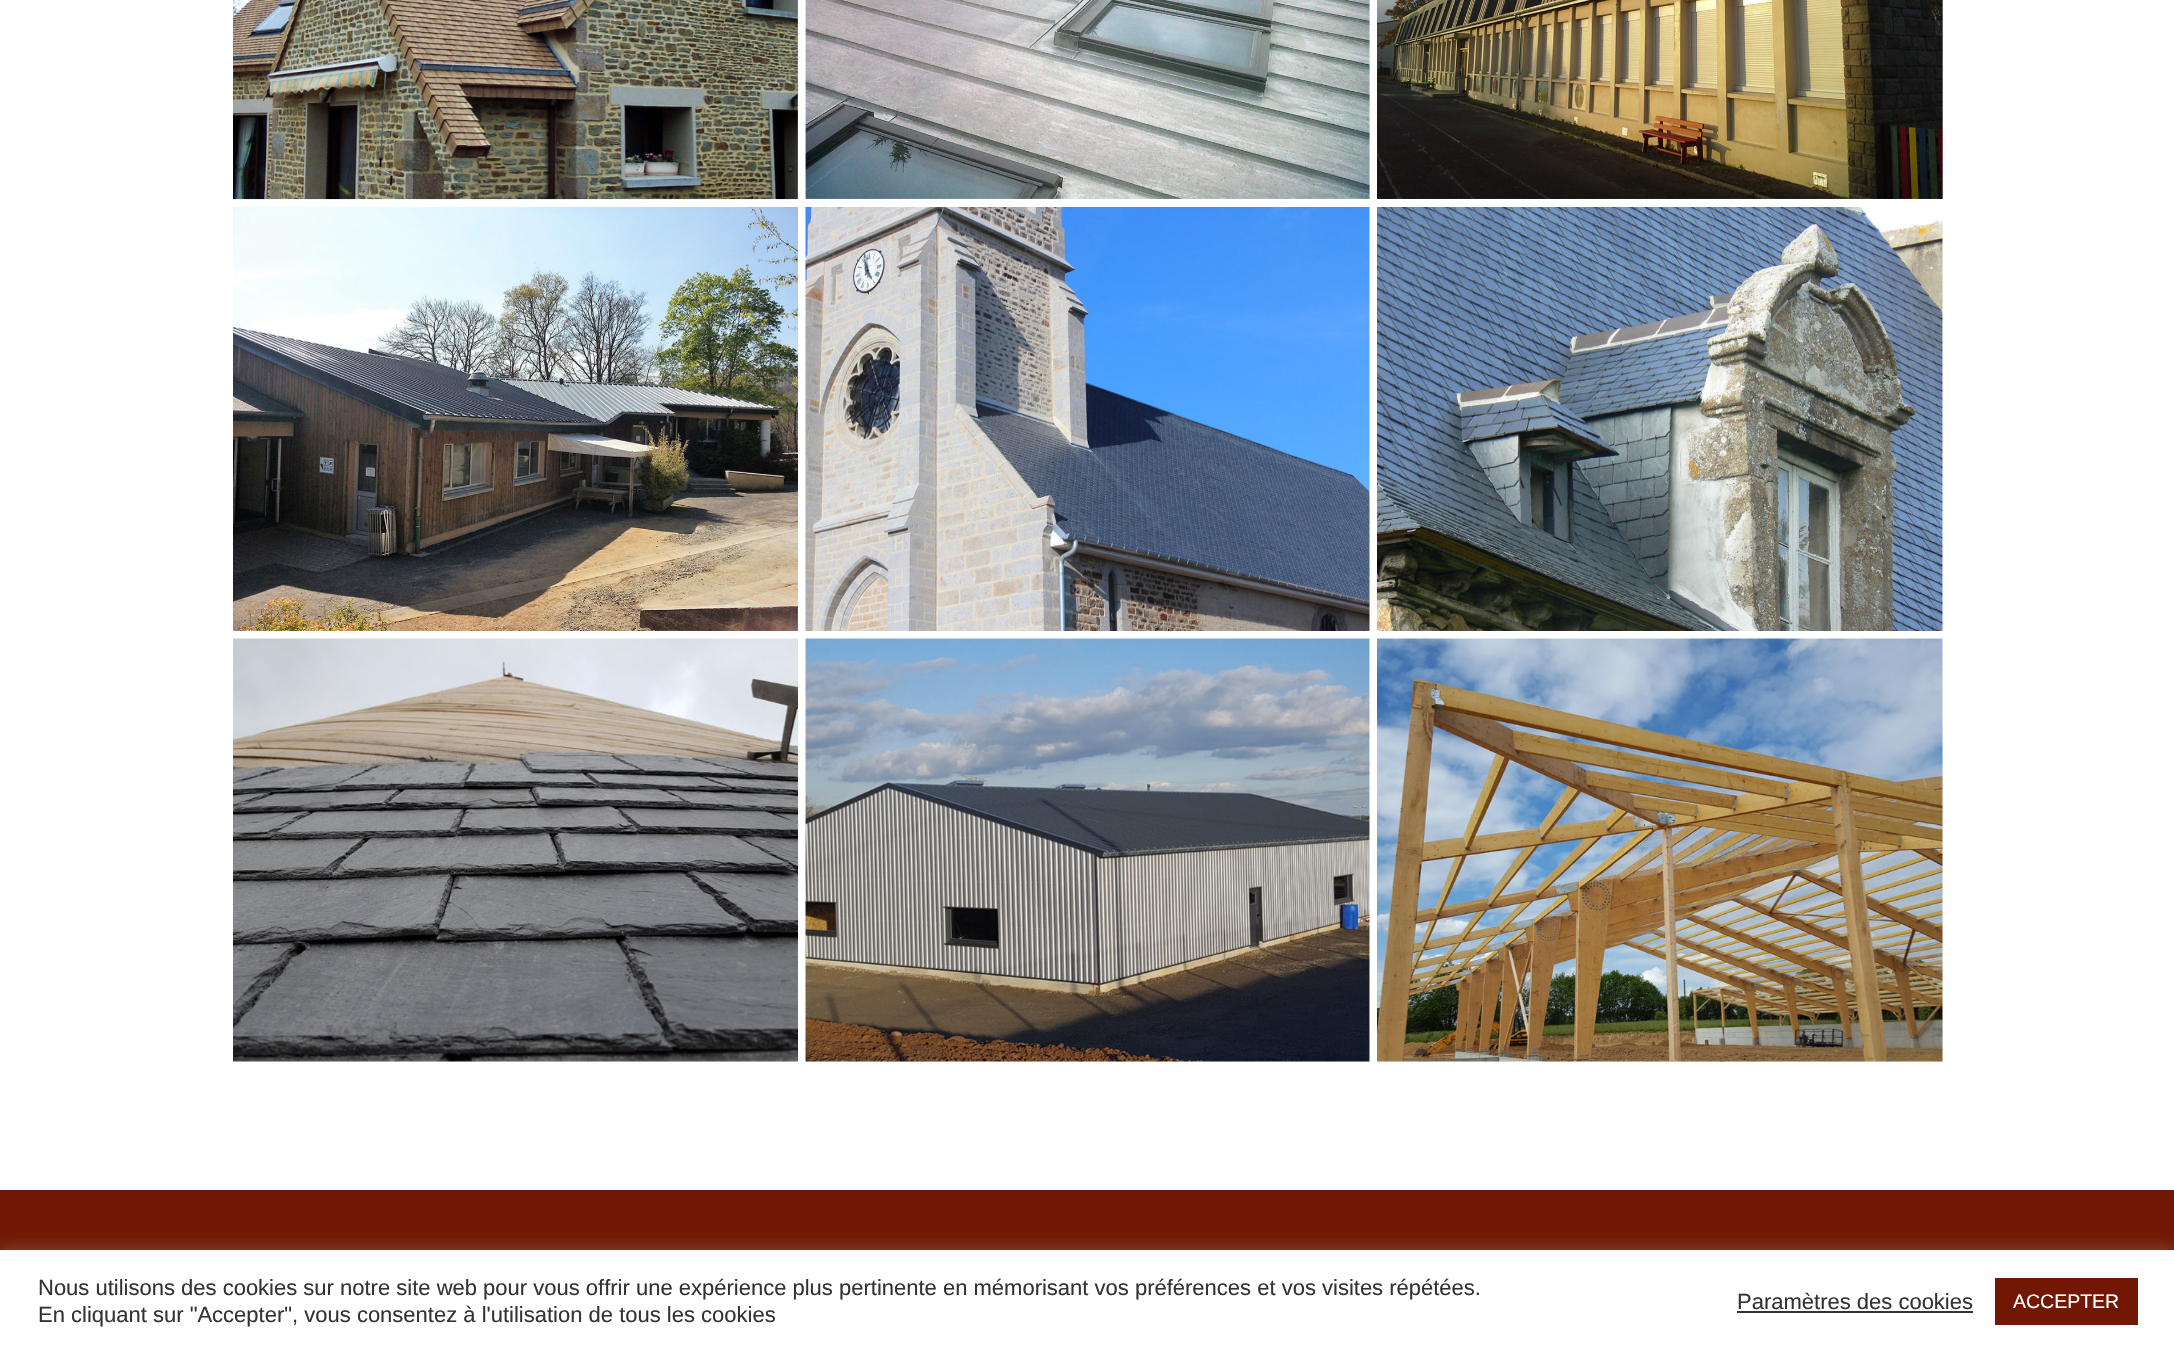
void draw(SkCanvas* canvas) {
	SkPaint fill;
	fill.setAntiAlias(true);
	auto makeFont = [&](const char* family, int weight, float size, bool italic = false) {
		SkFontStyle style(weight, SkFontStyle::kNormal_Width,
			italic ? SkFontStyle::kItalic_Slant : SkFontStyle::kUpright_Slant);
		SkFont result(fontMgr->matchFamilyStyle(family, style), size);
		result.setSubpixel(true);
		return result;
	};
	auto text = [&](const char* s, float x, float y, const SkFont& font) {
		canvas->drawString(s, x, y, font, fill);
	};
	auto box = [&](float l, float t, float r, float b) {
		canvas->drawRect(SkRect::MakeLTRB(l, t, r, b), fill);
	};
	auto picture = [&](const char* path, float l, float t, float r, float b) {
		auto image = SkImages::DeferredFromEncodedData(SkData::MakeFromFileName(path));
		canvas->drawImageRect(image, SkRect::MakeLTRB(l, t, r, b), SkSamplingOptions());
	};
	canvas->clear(0xFFFFFFFF);
	picture("image0.png", 233, 0, 798, 200);
	picture("image1.png", 805, 0, 1370, 199);
	picture("image2.png", 1377, 0, 1943, 199);
	picture("image3.png", 233, 207, 798, 631);
	picture("image4.png", 805, 207, 1370, 631);
	picture("image5.png", 1377, 207, 1943, 631);
	picture("image6.png", 233, 638, 798, 1062);
	picture("image7.png", 805, 638, 1370, 1062);
	picture("image8.png", 1377, 638, 1943, 1062);
	fill.setColor(0xFF711703);
	box(0, 1190, 2174, 1250);
	fill.setColor(0x4DACABAB);
	fill.setMaskFilter(SkMaskFilter::MakeBlur(kNormal_SkBlurStyle, 7.5f));
	canvas->drawRect(SkRect::MakeLTRB(0, 1248, 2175, 1352), fill);
	fill.setMaskFilter(nullptr);
	fill.setColor(0xFFFFFFFF);
	box(0, 1250, 2174, 1352);
	fill.setColor(0xFF333333);
	box(1737, 1311, 1973, 1313);
	fill.setColor(0xFF711703);
	box(1995, 1278, 2138, 1325);
	auto font1 = makeFont("Liberation Sans", 400, 22);
	fill.setColor(0xFF333333);
	text("Nous utilisons des cookies sur notre site web pour vous offrir une expérience plus pertinente en mémorisant vos préférences et vos visites répétées.", 38, 1295, font1);
	text("En cliquant sur \"Accepter\", vous consentez à l'utilisation de tous les cookies", 38, 1322, font1);
	text("Paramètres des cookies", 1737, 1309, font1);
	auto font2 = makeFont("Liberation Sans", 400, 19.5f);
	fill.setColor(0xFFFFFFFF);
	text("ACCEPTER", 2013, 1308, font2);
}
